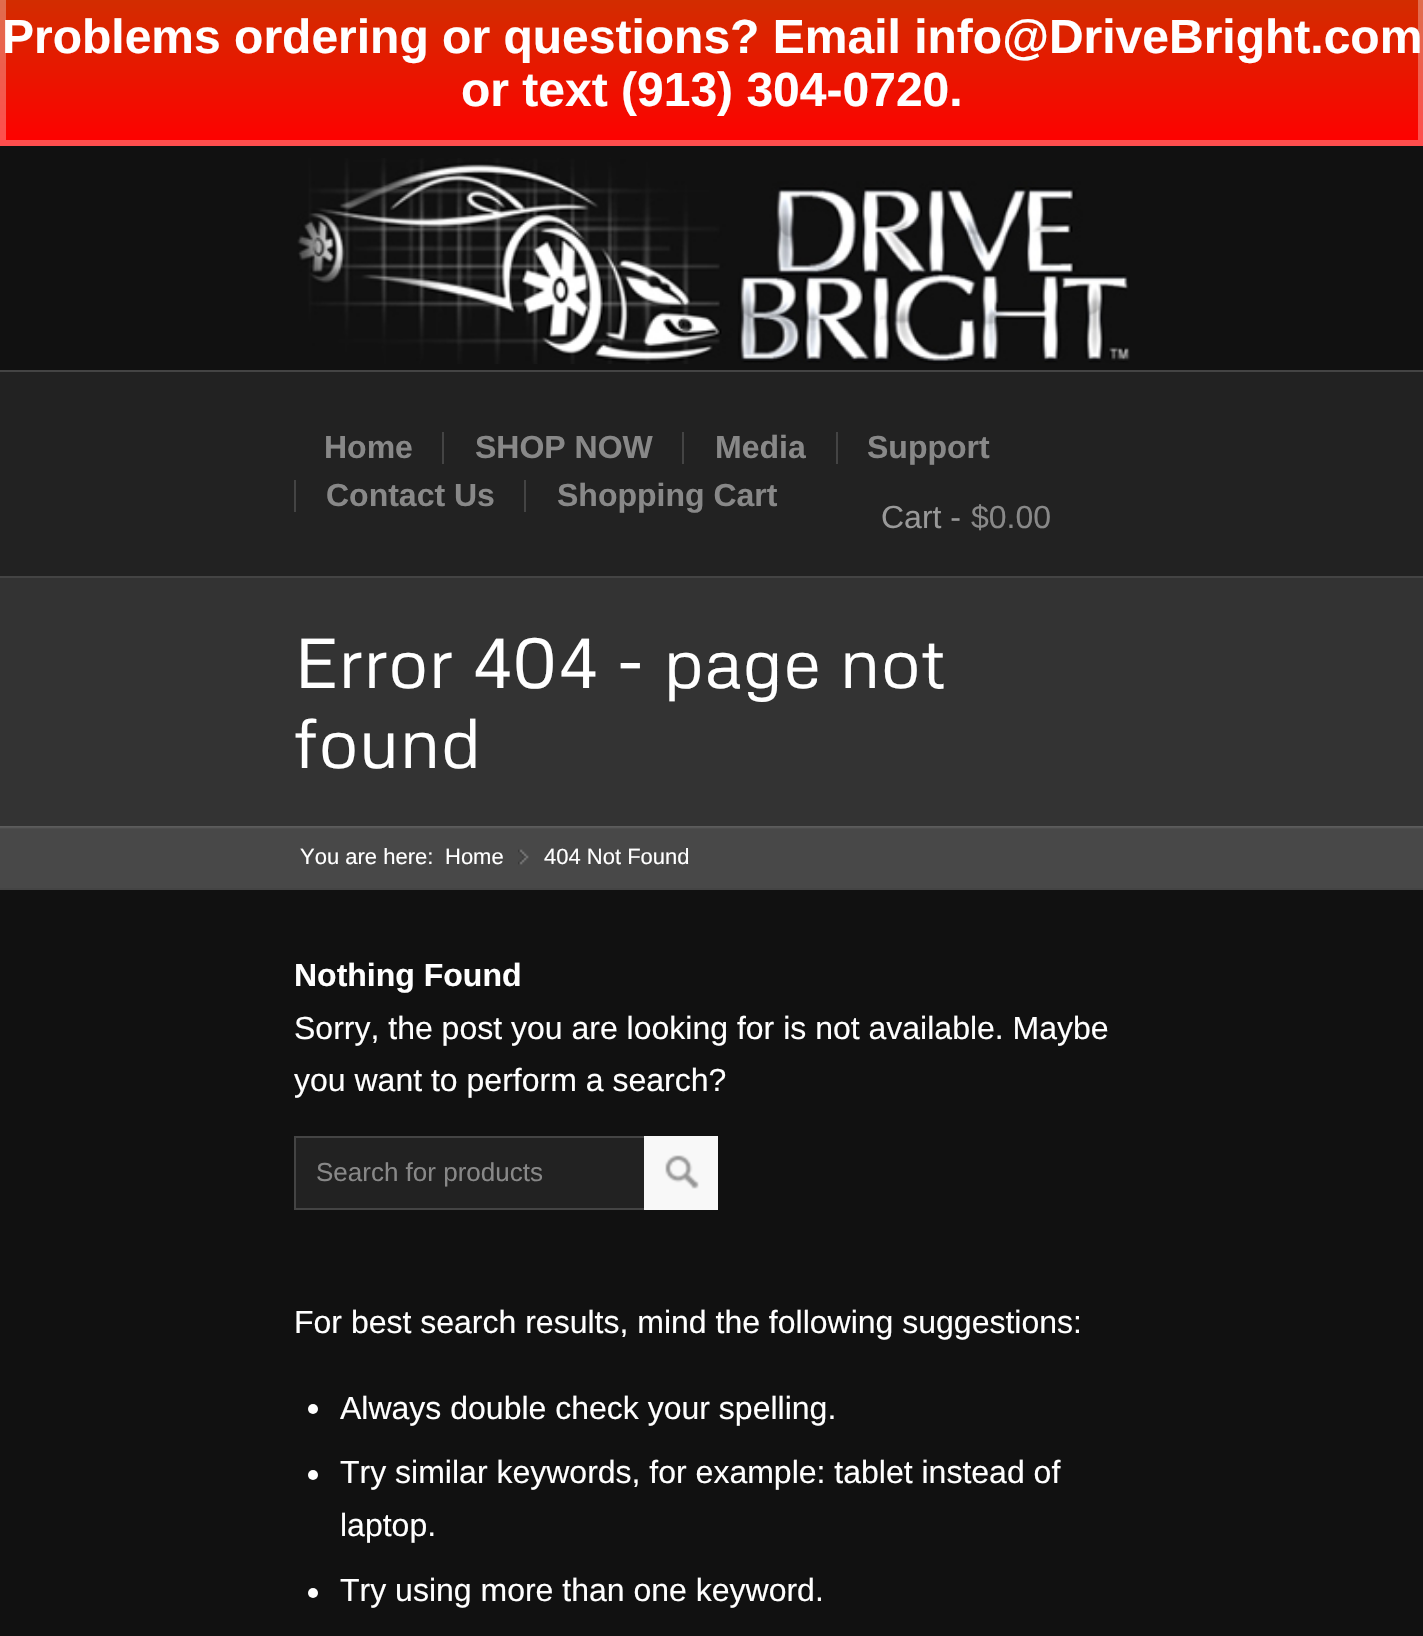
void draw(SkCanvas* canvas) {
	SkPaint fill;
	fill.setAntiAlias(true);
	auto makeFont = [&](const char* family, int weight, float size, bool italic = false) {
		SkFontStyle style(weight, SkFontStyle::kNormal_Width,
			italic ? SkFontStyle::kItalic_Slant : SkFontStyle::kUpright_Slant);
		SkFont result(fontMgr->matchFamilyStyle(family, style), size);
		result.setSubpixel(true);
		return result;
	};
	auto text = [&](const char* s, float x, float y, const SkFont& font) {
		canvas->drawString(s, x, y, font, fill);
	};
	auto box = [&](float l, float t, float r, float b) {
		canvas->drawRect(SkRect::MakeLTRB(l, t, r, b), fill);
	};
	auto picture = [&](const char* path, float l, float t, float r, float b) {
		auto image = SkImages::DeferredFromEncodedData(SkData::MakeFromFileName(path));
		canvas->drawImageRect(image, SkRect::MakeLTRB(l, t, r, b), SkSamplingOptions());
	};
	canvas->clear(0xFF111111);
	{
		const SkColor colors[] = {0xFFCC3300, 0xFFFF0000};
		const float stops[] = {0, 1};
		const SkPoint ends[] = {{712, -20}, {712, 146}};
		fill.setShader(SkGradientShader::MakeLinear(ends, colors, stops, 2, SkTileMode::kClamp));
		fill.setAlpha(255);
	}
	box(0, 0, 1423, 146);
	fill.setStyle(SkPaint::kStroke_Style);
	fill.setStrokeWidth(6);
	fill.setShader(nullptr);
	fill.setColor(0x4DFFFFFF);
	canvas->drawRect(SkRect::MakeLTRB(3, -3, 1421, 143), fill);
	picture("image0.png", 297, 158, 1130, 364);
	fill.setStyle(SkPaint::kFill_Style);
	fill.setColor(0xFF222222);
	box(0, 372, 1423, 576);
	fill.setColor(0xFF444444);
	box(0, 370, 1423, 372);
	box(0, 576, 1423, 578);
	box(442, 432, 444, 464);
	box(682, 432, 684, 464);
	box(836, 432, 838, 464);
	box(294, 480, 296, 512);
	box(524, 480, 526, 512);
	fill.setColor(0xFF333333);
	box(0, 578, 1423, 888);
	fill.setColor(0xFF444444);
	box(0, 888, 1423, 890);
	picture("image1.png", 0, 826, 1423, 888);
	picture("image2.png", 518, 849, 529, 865);
	fill.setColor(0xFF222222);
	box(296, 1138, 644, 1208);
	fill.setStyle(SkPaint::kStroke_Style);
	fill.setStrokeWidth(2);
	fill.setColor(0xFF444444);
	canvas->drawRect(SkRect::MakeLTRB(295, 1137, 717, 1209), fill);
	fill.setStyle(SkPaint::kFill_Style);
	fill.setColor(0xFFF8F8F8);
	box(644, 1136, 718, 1210);
	picture("image3.png", 665, 1155, 699, 1189);
	fill.setColor(0xFFFFFFFF);
	canvas->drawCircle(313, 1409, 5, fill);
	canvas->drawCircle(313, 1475, 5, fill);
	canvas->drawCircle(313, 1593, 5, fill);
	auto font1 = makeFont("Liberation Sans", 700, 48);
	text("Problems ordering or questions? Email info@DriveBright.com", 2, 53, font1);
	text("or text (913) 304-0720.", 461, 106, font1);
	auto font2 = makeFont("Liberation Sans", 700, 32);
	fill.setColor(0xFF888888);
	text("Home", 324, 458, font2);
	text("SHOP NOW", 475, 458, font2);
	text("Media", 715, 458, font2);
	text("Support", 867, 458, font2);
	text("Contact Us", 326, 506, font2);
	text("Shopping Cart", 557, 506, font2);
	auto font3 = makeFont("Liberation Sans", 400, 32);
	fill.setColor(0xFF999999);
	text("Cart -", 881, 528, font3);
	fill.setColor(0xFF888888);
	text("$0.00", 971, 528, font3);
	auto font4 = makeFont("Metrophobic", 400, 70);
	fill.setColor(0xFFFFFFFF);
	text("Error 404 - page not", 294, 688, font4);
	text("found", 294, 768, font4);
	auto font5 = makeFont("Liberation Sans", 400, 22);
	text("You are here:", 300, 864, font5);
	text("Home", 445, 864, font5);
	text("404 Not Found", 544, 864, font5);
	text("Nothing Found", 294, 986, font2);
	text("Sorry, the post you are looking for is not available. Maybe", 294, 1039, font3);
	text("you want to perform a search?", 294, 1091, font3);
	auto font6 = makeFont("Liberation Sans", 400, 26);
	fill.setColor(0xFF888888);
	text("Search for products", 316, 1181, font6);
	fill.setColor(0xFFFFFFFF);
	text("For best search results, mind the following suggestions:", 294, 1333, font3);
	text("Always double check your spelling.", 340, 1419, font3);
	text("Try similar keywords, for example: tablet instead of", 340, 1483, font3);
	text("laptop.", 340, 1536, font3);
	text("Try using more than one keyword.", 340, 1601, font3);
}
